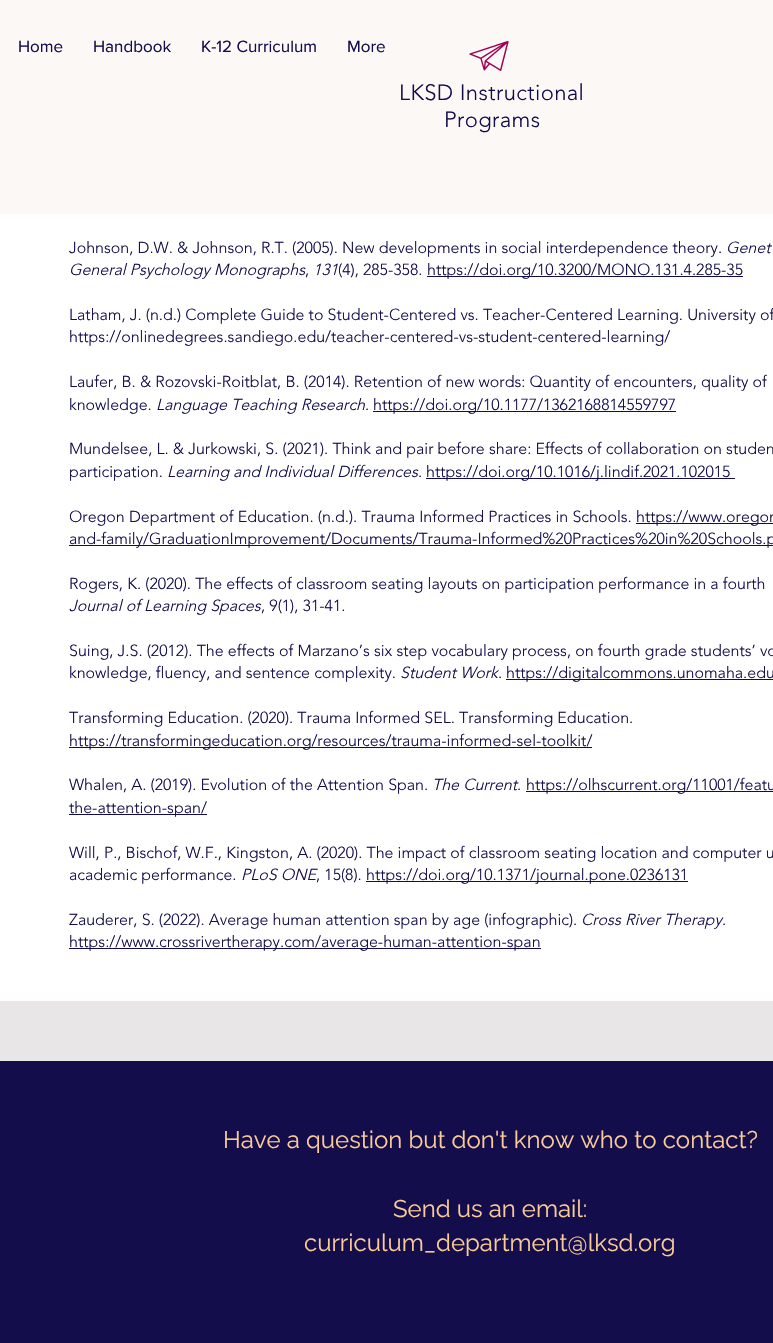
void draw(SkCanvas* canvas) {
	SkPaint fill;
	fill.setAntiAlias(true);
	auto makeFont = [&](const char* family, int weight, float size, bool italic = false) {
		SkFontStyle style(weight, SkFontStyle::kNormal_Width,
			italic ? SkFontStyle::kItalic_Slant : SkFontStyle::kUpright_Slant);
		SkFont result(fontMgr->matchFamilyStyle(family, style), size);
		result.setSubpixel(true);
		return result;
	};
	auto text = [&](const char* s, float x, float y, const SkFont& font) {
		canvas->drawString(s, x, y, font, fill);
	};
	auto spacedText = [&](const char* s, float x, float y, const SkFont& font, const SkPaint& ink, float letter, float word) {
		std::vector<SkGlyphID> glyphs(font.countText(s, strlen(s), SkTextEncoding::kUTF8));
		std::vector<float> xs(glyphs.size());
		font.textToGlyphs(s, strlen(s), SkTextEncoding::kUTF8, glyphs);
		font.getXPos(glyphs, xs, x);
		float extra = 0;
		for (size_t i = 0; i < glyphs.size(); i++) {
			xs[i] += extra;
			extra += letter + word * (glyphs[i] == font.unicharToGlyph(' '));
		}
		canvas->drawTextBlob(SkTextBlob::MakeFromPosHGlyphs(glyphs, xs, y, font), 0, 0, ink);
	};
	auto box = [&](float l, float t, float r, float b) {
		canvas->drawRect(SkRect::MakeLTRB(l, t, r, b), fill);
	};
	auto picture = [&](const char* path, float l, float t, float r, float b) {
		auto image = SkImages::DeferredFromEncodedData(SkData::MakeFromFileName(path));
		canvas->drawImageRect(image, SkRect::MakeLTRB(l, t, r, b), SkSamplingOptions());
	};
	canvas->clear(0xFFE8E6E6);
	fill.setColor(0xFFFCF8F5);
	box(0, 0, 773, 214);
	picture("image0.png", 469, 41, 509, 71);
	fill.setColor(0xFFFFFFFF);
	box(0, 214, 773, 1001);
	fill.setColor(0xFF130D4C);
	box(427, 276, 743, 277);
	box(373, 411, 676, 412);
	box(426, 478, 735, 479);
	box(636, 523, 773, 524);
	box(69, 545, 773, 546);
	box(506, 679, 773, 680);
	box(69, 747, 592, 748);
	box(526, 791, 773, 792);
	box(69, 814, 207, 815);
	box(366, 881, 688, 882);
	box(69, 948, 541, 949);
	box(0, 1061, 773, 1343);
	auto font1 = makeFont("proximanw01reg", 400, 17);
	text("Home", 18, 52, font1);
	text("Handbook", 93, 52, font1);
	text("K-12 Curriculum", 201, 52, font1);
	text("More", 347, 52, font1);
	auto font2 = makeFont("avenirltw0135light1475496", 300, 22);
	spacedText("LKSD Instructional", 399, 100, font2, fill, 0.4f, 0);
	spacedText("Programs", 444, 127, font2, fill, 0.4f, 0);
	auto font3 = makeFont("avenirltw0135light1475496", 300, 16);
	text("Johnson, D.W. & Johnson, R.T. (2005). New developments in social interdependence theory.", 69, 253, font3);
	auto font4 = makeFont("avenirltw0135light1475496", 300, 16, true);
	text("Genet", 726, 253, font4);
	text("General Psychology Monographs", 69, 275, font4);
	text(",", 305, 275, font3);
	text("131", 313, 275, font4);
	text("(4), 285-358.", 338, 275, font3);
	text("https://doi.org/10.3200/MONO.131.4.285-35", 427, 275, font3);
	text("Latham, J. (n.d.) Complete Guide to Student-Centered vs. Teacher-Centered Learning. University of", 69, 320, font3);
	text("https://onlinedegrees.sandiego.edu/teacher-centered-vs-student-centered-learning/", 69, 342, font3);
	text("Laufer, B. & Rozovski-Roitblat, B. (2014). Retention of new words: Quantity of encounters, quality of", 69, 387, font3);
	text("knowledge.", 69, 410, font3);
	text("Language Teaching Research", 156, 410, font4);
	text(".", 365, 410, font3);
	text("https://doi.org/10.1177/1362168814559797", 373, 410, font3);
	text("Mundelsee, L. & Jurkowski, S. (2021). Think and pair before share: Effects of collaboration on studen", 69, 454, font3);
	text("participation.", 69, 477, font3);
	text("Learning and Individual Differences", 167, 477, font4);
	text(".", 418, 477, font3);
	text("https://doi.org/10.1016/j.lindif.2021.102015", 426, 477, font3);
	text("Oregon Department of Education. (n.d.). Trauma Informed Practices in Schools.", 69, 522, font3);
	text("https://www.oregon", 636, 522, font3);
	text("and-family/GraduationImprovement/Documents/Trauma-Informed%20Practices%20in%20Schools.p", 69, 544, font3);
	text("Rogers, K. (2020). The effects of classroom seating layouts on participation performance in a fourth", 69, 589, font3);
	text("Journal of Learning Spaces", 69, 611, font4);
	text(", 9(1), 31-41.", 261, 611, font3);
	text("Suing, J.S. (2012). The effects of Marzano’s six step vocabulary process, on fourth grade students’ vo", 69, 656, font3);
	text("knowledge, fluency, and sentence complexity.", 69, 678, font3);
	text("Student Work", 400, 678, font4);
	text("https://digitalcommons.unomaha.edu", 506, 678, font3);
	text(".", 498, 678, font3);
	text("Transforming Education. (2020). Trauma Informed SEL. Transforming Education.", 69, 723, font3);
	text("https://transformingeducation.org/resources/trauma-informed-sel-toolkit/", 69, 746, font3);
	text("Whalen, A. (2019). Evolution of the Attention Span.", 69, 790, font3);
	text("The Current", 432, 790, font4);
	text(".", 517, 790, font3);
	text("https://olhscurrent.org/11001/featu", 526, 790, font3);
	text("the-attention-span/", 69, 813, font3);
	text("Will, P., Bischof, W.F., Kingston, A. (2020). The impact of classroom seating location and computer u", 69, 858, font3);
	text("academic performance.", 69, 880, font3);
	text("PLoS ONE", 241, 880, font4);
	text(", 15(8).", 316, 880, font3);
	text("https://doi.org/10.1371/journal.pone.0236131", 366, 880, font3);
	text("Zauderer, S. (2022). Average human attention span by age (infographic).", 69, 925, font3);
	text("Cross River Therapy", 581, 925, font4);
	text(".", 722, 925, font3);
	text("https://www.crossrivertherapy.com/average-human-attention-span", 69, 947, font3);
	auto font5 = makeFont("Raleway", 400, 24);
	fill.setColor(0xFFFCCB96);
	text("Have a question but don't know who to contact?", 223, 1148, font5);
	text("Send us an email:", 393, 1217, font5);
	text("curriculum_department@lksd.org", 304, 1251, font5);
}
